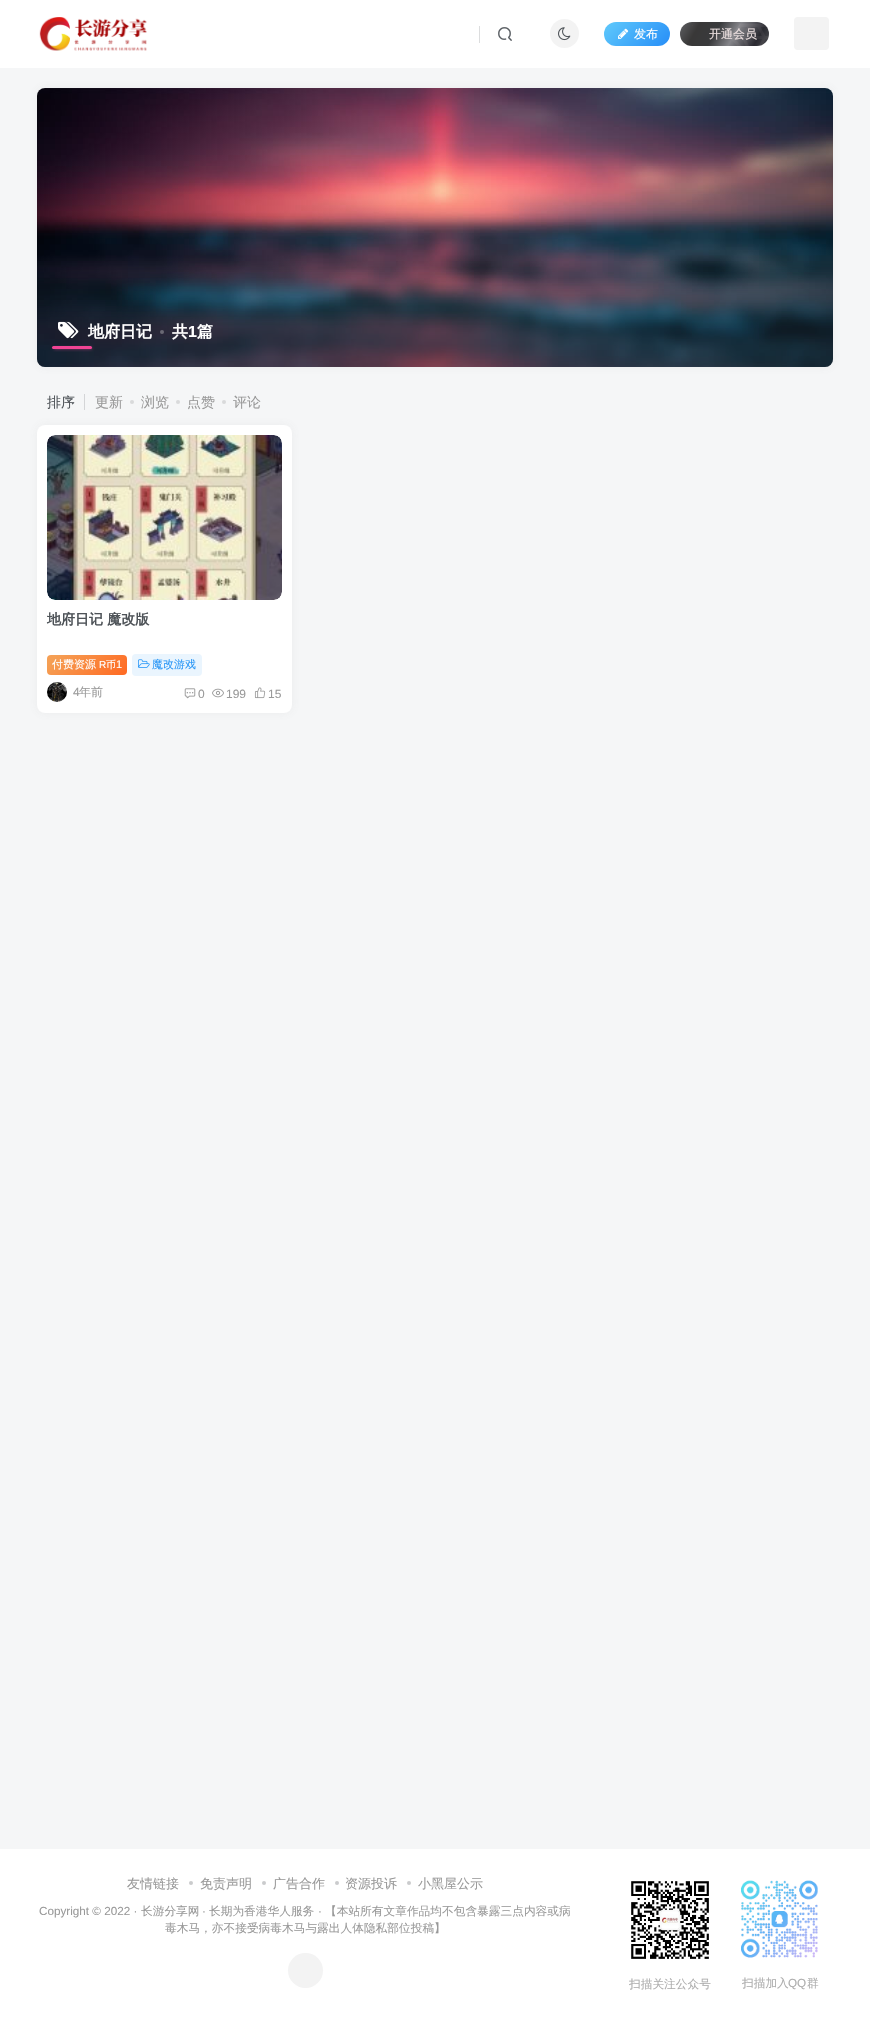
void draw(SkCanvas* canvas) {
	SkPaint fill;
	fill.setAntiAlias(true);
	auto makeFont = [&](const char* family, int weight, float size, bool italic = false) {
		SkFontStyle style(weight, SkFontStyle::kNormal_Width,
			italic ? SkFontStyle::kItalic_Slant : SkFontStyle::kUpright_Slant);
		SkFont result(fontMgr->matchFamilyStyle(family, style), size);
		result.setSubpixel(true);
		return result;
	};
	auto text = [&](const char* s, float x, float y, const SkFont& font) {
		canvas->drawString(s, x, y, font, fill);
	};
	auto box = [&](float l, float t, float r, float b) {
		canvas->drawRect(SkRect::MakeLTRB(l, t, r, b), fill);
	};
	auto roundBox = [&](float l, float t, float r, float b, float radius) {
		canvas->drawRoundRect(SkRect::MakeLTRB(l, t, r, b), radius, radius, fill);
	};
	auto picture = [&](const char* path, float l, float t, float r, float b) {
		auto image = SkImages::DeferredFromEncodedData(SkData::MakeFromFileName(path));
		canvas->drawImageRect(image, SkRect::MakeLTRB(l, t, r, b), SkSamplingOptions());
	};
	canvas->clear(0xFFF5F6F7);
	fill.setColor(0xFFFFFFFF);
	box(0, 0, 870, 68);
	picture("image0.png", 39, 17, 147, 51);
	fill.setColor(0xFFDCDDDE);
	box(479, 26, 480, 43);
	picture("image1.png", 498, 27, 512, 41);
	fill.setColor(0xFFF3F3F3);
	canvas->drawCircle(564.5f, 33.5f, 14.5f, fill);
	picture("image2.png", 558, 27, 571, 41);
	{
		const SkColor colors[] = {0xFF59C3FB, 0xFF268DF7};
		const float stops[] = {0.1f, 1};
		const SkPoint ends[] = {{615, 12}, {660, 57}};
		fill.setShader(SkGradientShader::MakeLinear(ends, colors, stops, 2, SkTileMode::kClamp));
		fill.setAlpha(255);
	}
	roundBox(604, 22, 670, 46, 12);
	picture("image3.png", 618, 28, 629, 39);
	{
		const SkColor colors[] = {0xFF4C4D51, 0xFF2A2A31, 0xFF85858A, 0xFF393A3C, 0xFF393838, 0xFF5E5F62};
		const float stops[] = {0, 0.15f, 0.4f, 0.6f, 0.8f, 1};
		const SkPoint ends[] = {{763, 56}, {686, 12}};
		fill.setShader(SkGradientShader::MakeLinear(ends, colors, stops, 6, SkTileMode::kClamp));
		fill.setAlpha(255);
	}
	roundBox(680, 22, 769, 46, 12);
	fill.setShader(nullptr);
	fill.setColor(0xFF4D4745);
	box(692, 25, 693, 26);
	fill.setColor(0xFFF3F3F3);
	roundBox(794, 17, 829, 50, 4);
	fill.setColor(0x14747474);
	fill.setMaskFilter(SkMaskFilter::MakeBlur(kNormal_SkBlurStyle, 5));
	canvas->drawRoundRect(SkRect::MakeLTRB(37, 88, 833, 367), 8, 8, fill);
	fill.setMaskFilter(nullptr);
	fill.setColor(0xFFFFFFFF);
	roundBox(37, 88, 833, 367, 8);
	picture("image5.png", 37, 88, 833, 367);
	{
		const SkColor colors[] = {0x661D2931, 0x001D2931};
		const float stops[] = {0.15f, 0.4f};
		const SkPoint ends[] = {{435, 367}, {435, 88}};
		fill.setShader(SkGradientShader::MakeLinear(ends, colors, stops, 2, SkTileMode::kClamp));
		fill.setAlpha(255);
	}
	roundBox(37, 88, 833, 367, 8);
	picture("image6.png", 58, 321, 79, 339);
	fill.setShader(nullptr);
	fill.setColor(0xFF6A6974);
	canvas->drawCircle(162, 332, 2, fill);
	fill.setColor(0xFFF04494);
	fill.setMaskFilter(SkMaskFilter::MakeBlur(kNormal_SkBlurStyle, 1.5f));
	canvas->drawRoundRect(SkRect::MakeLTRB(54, 348, 92, 349), 0.5f, 0.5f, fill);
	fill.setMaskFilter(nullptr);
	roundBox(52, 346, 92, 349, 1.5f);
	fill.setColor(0x14747474);
	fill.setMaskFilter(SkMaskFilter::MakeBlur(kNormal_SkBlurStyle, 5));
	canvas->drawRoundRect(SkRect::MakeLTRB(37, 425, 292, 713), 8, 8, fill);
	fill.setMaskFilter(nullptr);
	fill.setColor(0xFFD4D5D7);
	box(84, 394, 85, 410);
	fill.setColor(0xFFD9DADB);
	canvas->drawCircle(132, 402, 2, fill);
	canvas->drawCircle(178, 402, 2, fill);
	canvas->drawCircle(224, 402, 2, fill);
	fill.setColor(0xFFFFFFFF);
	roundBox(37, 425, 292, 713, 8);
	picture("image7.png", 47, 435, 282, 600);
	{
		const SkColor colors[] = {0xFFF59F54, 0xFFFF6922};
		const float stops[] = {0.1f, 1};
		const SkPoint ends[] = {{62, 640}, {112, 690}};
		fill.setShader(SkGradientShader::MakeLinear(ends, colors, stops, 2, SkTileMode::kClamp));
		fill.setAlpha(255);
	}
	roundBox(47, 655, 127, 675, 4);
	fill.setShader(nullptr);
	fill.setColor(0xFFEAF5FE);
	roundBox(132, 654, 202, 676, 4);
	picture("image8.png", 138, 659, 150, 668);
	picture("image9.png", 47, 682, 67, 702);
	picture("image10.png", 184, 688, 196, 699);
	picture("image11.png", 212, 688, 224, 698);
	picture("image12.png", 254, 687, 266, 699);
	fill.setColor(0xFFFFFFFF);
	box(0, 1849, 870, 2019);
	fill.setColor(0xFFCACBCD);
	canvas->drawCircle(191, 1883, 2, fill);
	canvas->drawCircle(264, 1883, 2, fill);
	canvas->drawCircle(337, 1883, 2, fill);
	canvas->drawCircle(409, 1883, 2, fill);
	fill.setColor(0xFFF3F3F3);
	canvas->drawCircle(305.5f, 1970.5f, 17.5f, fill);
	picture("image13.png", 631, 1881, 709, 1959);
	picture("image14.png", 741, 1880, 818, 1958);
	auto font1 = makeFont("WenQuanYi Zen Hei", 500, 12);
	fill.setColor(0xFFFFFFFF);
	text("发布", 634, 38, font1);
	fill.setColor(0xFFECE0E0);
	text("开通会员", 709, 38, font1);
	picture("image4.png", 730, 24, 769, 46);
	auto font2 = makeFont("WenQuanYi Zen Hei", 700, 16);
	fill.setColor(0xFFFFFFFF);
	text("地府日记", 88, 337, font2);
	text("共", 172, 337, font2);
	auto font3 = makeFont("Liberation Sans", 700, 16);
	text("1", 188, 337, font3);
	text("篇", 197, 337, font2);
	auto font4 = makeFont("WenQuanYi Zen Hei", 500, 14);
	fill.setColor(0xFF4E5358);
	text("排序", 47, 407, font4);
	fill.setColor(0xFF999999);
	text("更新", 95, 407, font4);
	text("浏览", 141, 407, font4);
	text("点赞", 187, 407, font4);
	text("评论", 233, 407, font4);
	auto font5 = makeFont("WenQuanYi Zen Hei", 700, 14);
	fill.setColor(0xFF4E5358);
	text("地府日记 魔改版", 47, 624, font5);
	auto font6 = makeFont("WenQuanYi Zen Hei", 500, 11);
	fill.setColor(0xFFFFFFFF);
	text("付费资源", 52, 668, font6);
	auto font7 = makeFont("Liberation Sans", 400, 10);
	text("R", 99, 668, font7);
	auto font8 = makeFont("WenQuanYi Zen Hei", 500, 10);
	text("币", 106, 668, font8);
	auto font9 = makeFont("Liberation Sans", 400, 11);
	text("1", 116, 668, font9);
	fill.setColor(0xFF2997F7);
	text("魔改游戏", 152, 668, font6);
	auto font10 = makeFont("Liberation Sans", 400, 12);
	fill.setColor(0xFF999999);
	text("4", 73, 696, font10);
	text("年前", 79, 696, font1);
	text("0", 198, 698, font10);
	text("199", 226, 698, font10);
	text("15", 268, 698, font10);
	auto font11 = makeFont("WenQuanYi Zen Hei", 500, 13);
	text("友情链接", 127, 1888, font11);
	text("免责声明", 200, 1888, font11);
	text("广告合作", 273, 1888, font11);
	text("资源投诉", 345, 1888, font11);
	text("小黑屋公示", 418, 1888, font11);
	auto font12 = makeFont("Liberation Sans", 400, 11.7f);
	text("Copyright © 2022 ·", 39, 1915, font12);
	auto font13 = makeFont("WenQuanYi Zen Hei", 500, 11.7f);
	text("长游分享网", 141, 1915, font13);
	text("·", 202, 1915, font12);
	text("长期为香港华人服务", 209, 1915, font13);
	text("·", 318, 1915, font12);
	text("【本站所有文章作品均不包含暴露三点内容或病", 325, 1915, font13);
	text("毒木马，亦不接受病毒木马与露出人体隐私部位投稿】", 165, 1932, font13);
	fill.setColor(0xFFADADAD);
	text("扫描关注公众号", 629, 1988, font13);
	text("扫描加入", 742, 1987, font13);
	text("QQ", 788, 1987, font12);
	text("群", 807, 1987, font13);
}
